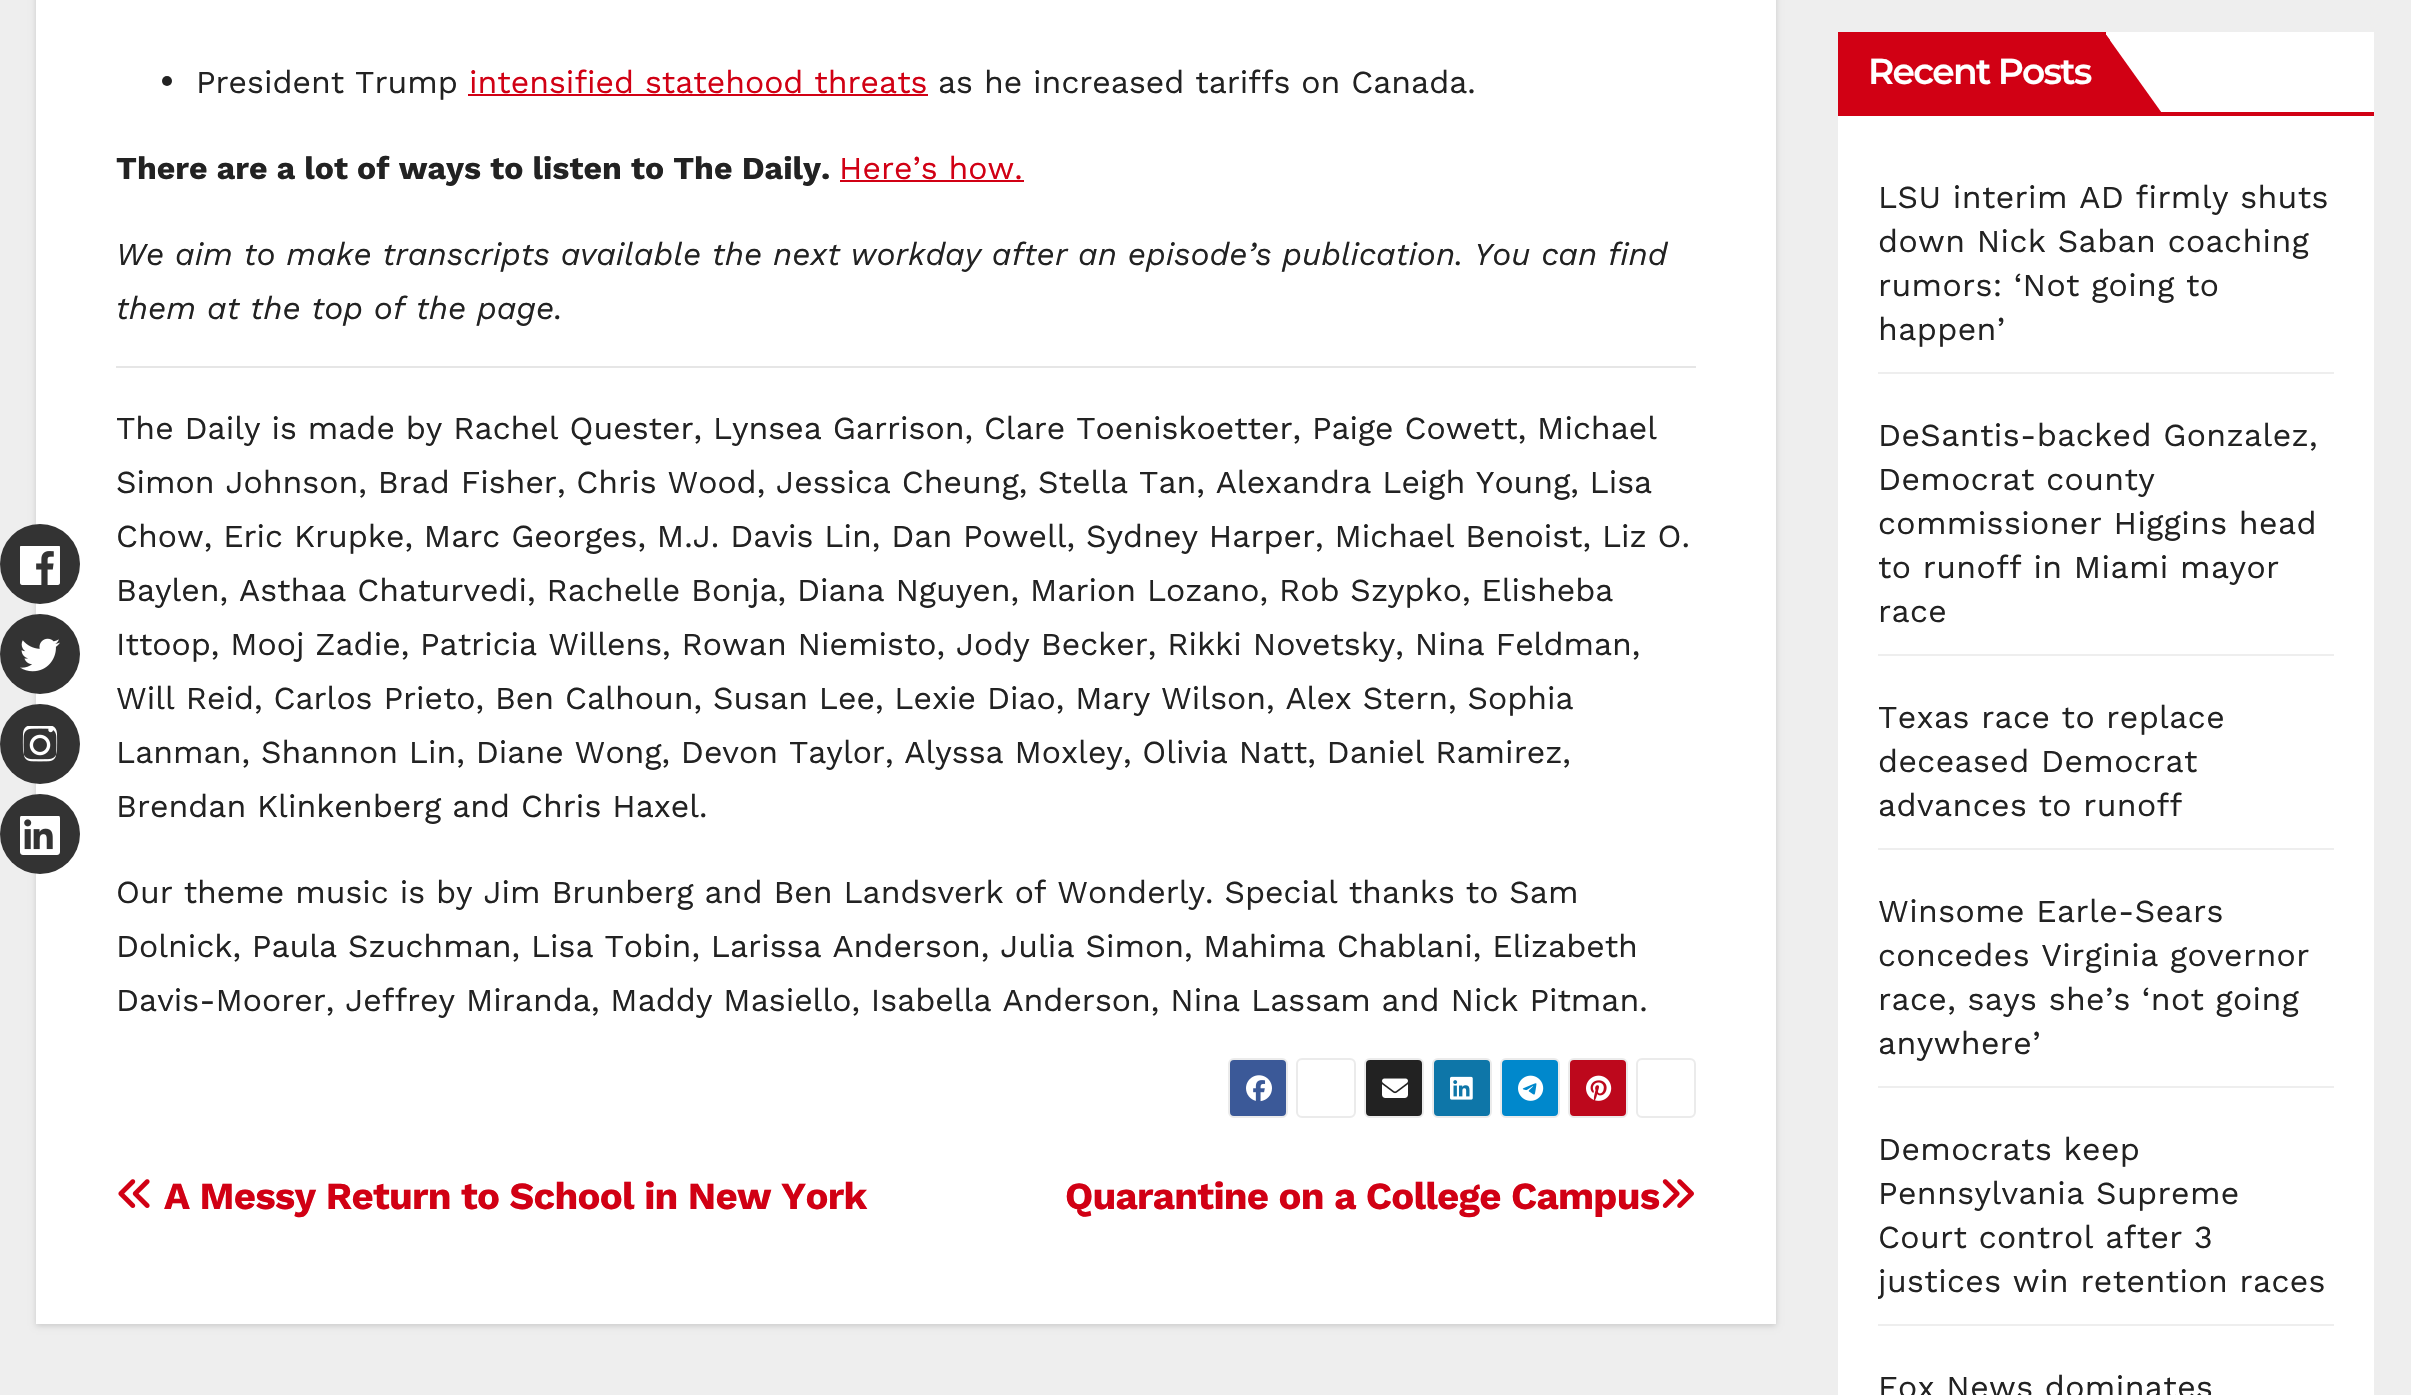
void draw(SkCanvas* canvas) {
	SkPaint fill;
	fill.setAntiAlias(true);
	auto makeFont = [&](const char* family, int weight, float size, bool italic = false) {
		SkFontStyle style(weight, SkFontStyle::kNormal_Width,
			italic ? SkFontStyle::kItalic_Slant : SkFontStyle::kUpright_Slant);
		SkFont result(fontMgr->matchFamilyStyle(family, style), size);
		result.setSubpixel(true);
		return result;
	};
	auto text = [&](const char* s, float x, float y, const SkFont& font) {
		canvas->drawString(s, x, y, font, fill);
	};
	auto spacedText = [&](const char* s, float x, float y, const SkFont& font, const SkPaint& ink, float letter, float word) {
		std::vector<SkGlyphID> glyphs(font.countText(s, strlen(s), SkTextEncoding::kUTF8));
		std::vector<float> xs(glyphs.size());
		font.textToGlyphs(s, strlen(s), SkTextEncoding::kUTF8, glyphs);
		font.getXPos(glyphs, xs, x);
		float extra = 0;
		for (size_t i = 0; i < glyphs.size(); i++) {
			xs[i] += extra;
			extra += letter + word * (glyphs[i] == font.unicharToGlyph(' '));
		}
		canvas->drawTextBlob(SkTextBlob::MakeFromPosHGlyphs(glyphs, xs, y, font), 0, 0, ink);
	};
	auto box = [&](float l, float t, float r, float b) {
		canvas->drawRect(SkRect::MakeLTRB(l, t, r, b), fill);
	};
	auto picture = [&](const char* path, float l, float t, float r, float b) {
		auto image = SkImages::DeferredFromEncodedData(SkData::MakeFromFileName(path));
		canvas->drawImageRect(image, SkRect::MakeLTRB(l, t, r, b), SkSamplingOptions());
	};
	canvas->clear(0xFFEEEEEE);
	fill.setColor(0x26000000);
	fill.setMaskFilter(SkMaskFilter::MakeBlur(kNormal_SkBlurStyle, 3));
	canvas->drawRect(SkRect::MakeLTRB(36, -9, 1776, 1326), fill);
	fill.setMaskFilter(nullptr);
	fill.setColor(0xFFFFFFFF);
	box(36, 0, 1776, 1324);
	fill.setColor(0xFF333333);
	canvas->drawCircle(40, 564, 40, fill);
	picture("image0.png", 20, 546, 60, 585);
	canvas->drawCircle(40, 654, 40, fill);
	picture("image1.png", 20, 638, 60, 672);
	canvas->drawCircle(40, 744, 40, fill);
	picture("image2.png", 22, 726, 58, 762);
	canvas->drawCircle(40, 834, 40, fill);
	picture("image3.png", 20, 816, 60, 855);
	fill.setColor(0xFF222222);
	canvas->drawCircle(167, 81, 5, fill);
	fill.setColor(0xFFD10014);
	box(468, 94, 928, 96);
	box(840, 180, 1024, 182);
	fill.setColor(0xFFE6E6E6);
	box(116, 366, 1696, 368);
	fill.setColor(0xFF3B5998);
	canvas->drawRoundRect(SkRect::MakeLTRB(1229, 1059, 1287, 1117), 5, 5, fill);
	fill.setStyle(SkPaint::kStroke_Style);
	fill.setStrokeWidth(2);
	fill.setColor(0xFFEBEBEB);
	canvas->drawRoundRect(SkRect::MakeLTRB(1229, 1059, 1287, 1117), 5, 5, fill);
	picture("image4.png", 1246, 1075, 1272, 1102);
	canvas->drawRoundRect(SkRect::MakeLTRB(1297, 1059, 1355, 1117), 5, 5, fill);
	fill.setStyle(SkPaint::kFill_Style);
	fill.setColor(0xFF222222);
	canvas->drawRoundRect(SkRect::MakeLTRB(1365, 1059, 1423, 1117), 5, 5, fill);
	fill.setStyle(SkPaint::kStroke_Style);
	fill.setColor(0xFFEBEBEB);
	canvas->drawRoundRect(SkRect::MakeLTRB(1365, 1059, 1423, 1117), 5, 5, fill);
	picture("image5.png", 1382, 1078, 1408, 1098);
	fill.setStyle(SkPaint::kFill_Style);
	fill.setColor(0xFF0E76A8);
	canvas->drawRoundRect(SkRect::MakeLTRB(1433, 1059, 1491, 1117), 5, 5, fill);
	fill.setStyle(SkPaint::kStroke_Style);
	fill.setColor(0xFFEBEBEB);
	canvas->drawRoundRect(SkRect::MakeLTRB(1433, 1059, 1491, 1117), 5, 5, fill);
	picture("image6.png", 1450, 1076, 1473, 1100);
	fill.setStyle(SkPaint::kFill_Style);
	fill.setColor(0xFF0088CC);
	canvas->drawRoundRect(SkRect::MakeLTRB(1501, 1059, 1559, 1117), 5, 5, fill);
	fill.setStyle(SkPaint::kStroke_Style);
	fill.setColor(0xFFEBEBEB);
	canvas->drawRoundRect(SkRect::MakeLTRB(1501, 1059, 1559, 1117), 5, 5, fill);
	picture("image7.png", 1518, 1075, 1544, 1101);
	fill.setStyle(SkPaint::kFill_Style);
	fill.setColor(0xFFBD081C);
	canvas->drawRoundRect(SkRect::MakeLTRB(1569, 1059, 1627, 1117), 5, 5, fill);
	fill.setStyle(SkPaint::kStroke_Style);
	fill.setColor(0xFFEBEBEB);
	canvas->drawRoundRect(SkRect::MakeLTRB(1569, 1059, 1627, 1117), 5, 5, fill);
	picture("image8.png", 1586, 1075, 1612, 1101);
	canvas->drawRoundRect(SkRect::MakeLTRB(1637, 1059, 1695, 1117), 5, 5, fill);
	picture("image9.png", 118, 1179, 150, 1208);
	picture("image10.png", 1662, 1179, 1694, 1208);
	fill.setStyle(SkPaint::kFill_Style);
	fill.setColor(0xFFFFFFFF);
	box(1838, 32, 2374, 1395);
	fill.setColor(0xFFD10014);
	box(1838, 112, 2374, 116);
	box(1838, 32, 2106, 112);
	canvas->drawPath(SkPathBuilder().moveTo(2104, 32).lineTo(2104, 116).lineTo(2164, 116).close().detach(), fill);
	canvas->drawPath(SkPathBuilder().moveTo(2104, 32).lineTo(2104, 116).lineTo(2110, 110).lineTo(2110, 40).close().detach(), fill);
	fill.setColor(0xFFEEEEEE);
	box(1878, 372, 2334, 374);
	box(1878, 654, 2334, 656);
	box(1878, 848, 2334, 850);
	box(1878, 1086, 2334, 1088);
	box(1878, 1324, 2334, 1326);
	auto font1 = makeFont("Work Sans", 400, 32);
	fill.setColor(0xFF222222);
	text("President Trump", 196, 93, font1);
	fill.setColor(0xFFD10014);
	text("intensified statehood threats", 469, 93, font1);
	fill.setColor(0xFF222222);
	text("as he increased tariffs on Canada.", 938, 93, font1);
	auto font2 = makeFont("Work Sans", 700, 32);
	text("There are a lot of ways to listen to The Daily.", 116, 179, font2);
	fill.setColor(0xFFD10014);
	text("Here’s how.", 839, 179, font1);
	auto font3 = makeFont("Work Sans", 400, 32, true);
	fill.setColor(0xFF222222);
	text("We aim to make transcripts available the next workday after an episode’s publication. You can find", 116, 265, font3);
	text("them at the top of the page.", 116, 319, font3);
	text("The Daily is made by Rachel Quester, Lynsea Garrison, Clare Toeniskoetter, Paige Cowett, Michael", 116, 439, font1);
	text("Simon Johnson, Brad Fisher, Chris Wood, Jessica Cheung, Stella Tan, Alexandra Leigh Young, Lisa", 116, 493, font1);
	text("Chow, Eric Krupke, Marc Georges, M.J. Davis Lin, Dan Powell, Sydney Harper, Michael Benoist, Liz O.", 116, 547, font1);
	text("Baylen, Asthaa Chaturvedi, Rachelle Bonja, Diana Nguyen, Marion Lozano, Rob Szypko, Elisheba", 116, 601, font1);
	text("Ittoop, Mooj Zadie, Patricia Willens, Rowan Niemisto, Jody Becker, Rikki Novetsky, Nina Feldman,", 116, 655, font1);
	text("Will Reid, Carlos Prieto, Ben Calhoun, Susan Lee, Lexie Diao, Mary Wilson, Alex Stern, Sophia", 116, 709, font1);
	text("Lanman, Shannon Lin, Diane Wong, Devon Taylor, Alyssa Moxley, Olivia Natt, Daniel Ramirez,", 116, 763, font1);
	text("Brendan Klinkenberg and Chris Haxel.", 116, 817, font1);
	text("Our theme music is by Jim Brunberg and Ben Landsverk of Wonderly. Special thanks to Sam", 116, 903, font1);
	text("Dolnick, Paula Szuchman, Lisa Tobin, Larissa Anderson, Julia Simon, Mahima Chablani, Elizabeth", 116, 957, font1);
	text("Davis-Moorer, Jeffrey Miranda, Maddy Masiello, Isabella Anderson, Nina Lassam and Nick Pitman.", 116, 1011, font1);
	auto font4 = makeFont("Work Sans", 700, 38.4f);
	fill.setColor(0xFFD10014);
	spacedText("A Messy Return to School in New York", 164, 1209, font4, fill, -0.75f, 0);
	spacedText("Quarantine on a College Campus", 1065, 1209, font4, fill, -0.75f, 0);
	auto font5 = makeFont("Montserrat", 600, 36);
	fill.setColor(0xFFFFFFFF);
	spacedText("Recent Posts", 1868, 84, font5, fill, -1.75f, 0);
	fill.setColor(0xFF222222);
	spacedText("LSU interim AD firmly shuts", 1878, 208, font1, fill, 0.4f, 0);
	spacedText("down Nick Saban coaching", 1878, 252, font1, fill, 0.4f, 0);
	spacedText("rumors: ‘Not going to", 1878, 296, font1, fill, 0.4f, 0);
	spacedText("happen’", 1878, 340, font1, fill, 0.4f, 0);
	spacedText("DeSantis-backed Gonzalez,", 1878, 446, font1, fill, 0.4f, 0);
	spacedText("Democrat county", 1878, 490, font1, fill, 0.4f, 0);
	spacedText("commissioner Higgins head", 1878, 534, font1, fill, 0.4f, 0);
	spacedText("to runoff in Miami mayor", 1878, 578, font1, fill, 0.4f, 0);
	spacedText("race", 1878, 622, font1, fill, 0.4f, 0);
	spacedText("Texas race to replace", 1878, 728, font1, fill, 0.4f, 0);
	spacedText("deceased Democrat", 1878, 772, font1, fill, 0.4f, 0);
	spacedText("advances to runoff", 1878, 816, font1, fill, 0.4f, 0);
	spacedText("Winsome Earle-Sears", 1878, 922, font1, fill, 0.4f, 0);
	spacedText("concedes Virginia governor", 1878, 966, font1, fill, 0.4f, 0);
	spacedText("race, says she’s ‘not going", 1878, 1010, font1, fill, 0.4f, 0);
	spacedText("anywhere’", 1878, 1054, font1, fill, 0.4f, 0);
	spacedText("Democrats keep", 1878, 1160, font1, fill, 0.4f, 0);
	spacedText("Pennsylvania Supreme", 1878, 1204, font1, fill, 0.4f, 0);
	spacedText("Court control after 3", 1878, 1248, font1, fill, 0.4f, 0);
	canvas->save();
	canvas->clipRect(SkRect::MakeLTRB(1878, 1108, 2334, 1324));
	spacedText("justices win retention races", 1878, 1292, font1, fill, 0.4f, 0);
	canvas->restore();
	spacedText("Fox News dominates", 1878, 1398, font1, fill, 0.4f, 0);
}
